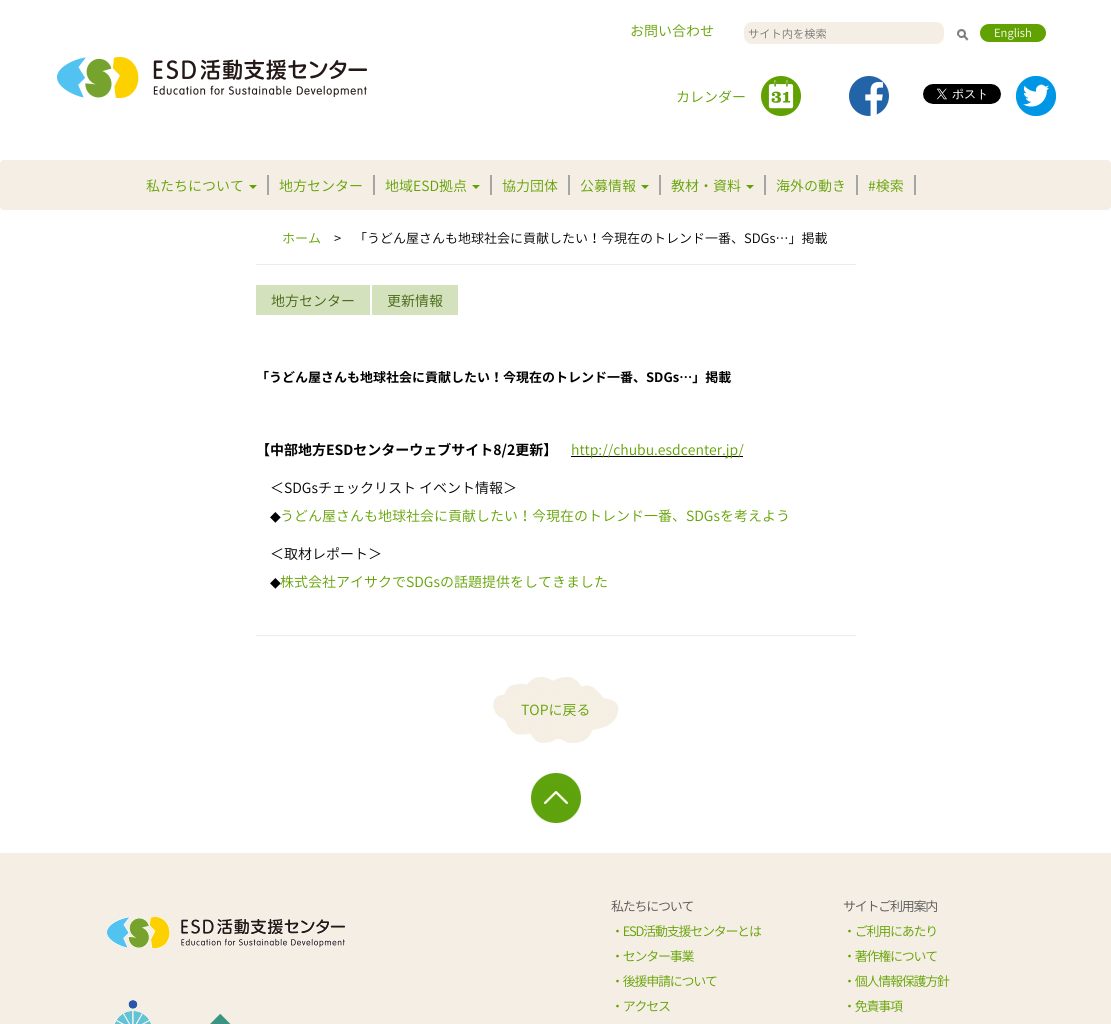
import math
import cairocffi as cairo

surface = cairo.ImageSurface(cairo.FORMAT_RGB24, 1111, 1024)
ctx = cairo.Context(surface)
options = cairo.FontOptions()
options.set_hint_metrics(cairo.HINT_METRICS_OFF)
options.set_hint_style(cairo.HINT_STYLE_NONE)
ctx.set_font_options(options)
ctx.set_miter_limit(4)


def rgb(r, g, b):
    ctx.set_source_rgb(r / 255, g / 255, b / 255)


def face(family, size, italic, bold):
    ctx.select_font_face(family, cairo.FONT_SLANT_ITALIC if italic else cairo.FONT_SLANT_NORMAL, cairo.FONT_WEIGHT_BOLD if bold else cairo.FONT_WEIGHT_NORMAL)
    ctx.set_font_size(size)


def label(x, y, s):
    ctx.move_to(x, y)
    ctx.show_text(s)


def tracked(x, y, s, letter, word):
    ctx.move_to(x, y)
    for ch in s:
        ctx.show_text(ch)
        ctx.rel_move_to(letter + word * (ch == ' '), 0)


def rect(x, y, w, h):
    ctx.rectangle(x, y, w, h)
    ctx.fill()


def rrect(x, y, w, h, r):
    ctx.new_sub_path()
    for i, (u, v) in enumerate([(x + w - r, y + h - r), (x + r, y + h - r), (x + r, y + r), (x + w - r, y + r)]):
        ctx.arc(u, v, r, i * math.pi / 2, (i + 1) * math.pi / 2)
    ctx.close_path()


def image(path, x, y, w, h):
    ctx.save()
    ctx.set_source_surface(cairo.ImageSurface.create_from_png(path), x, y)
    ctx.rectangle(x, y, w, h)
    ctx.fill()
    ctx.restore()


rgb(255, 255, 255)
ctx.paint()
face('Noto Sans JP Light', 14, 0, 0)
rgb(97, 161, 0)
label(630, 36, 'お問い合わせ')
rgb(245, 238, 228)
rrect(744, 22, 200, 22, 8)
ctx.fill()
face('Noto Sans JP Light', 11.25, 0, 0)
rgb(117, 117, 117)
label(748, 38, 'サイト内を検索')
image('image0.png', 957, 29, 12, 12)
rgb(97, 161, 0)
rrect(980, 24, 66, 18, 9)
ctx.fill()
rgb(255, 255, 255)
label(994, 37, 'English')
image('image1.png', 57, 57, 310, 41)
face('Noto Sans JP Light', 14, 0, 0)
rgb(97, 161, 0)
label(676, 102, 'カレンダー')
image('image2.png', 761, 76, 40, 40)
image('image3.png', 849, 76, 40, 40)
image('image4.png', 923, 84, 78, 20)
image('image5.png', 1016, 76, 40, 40)
rgb(245, 238, 228)
rrect(0, 160, 1111, 50, 4)
ctx.fill()
rgb(165, 165, 165)
rect(267, 175, 2, 20)
rgb(97, 161, 0)
label(146, 191, '私たちについて')
ctx.new_path()
ctx.move_to(249, 185)
ctx.line_to(257, 185)
ctx.line_to(253, 189)
ctx.close_path()
ctx.fill()
rgb(165, 165, 165)
rect(373, 175, 2, 20)
rgb(97, 161, 0)
label(279, 191, '地方センター')
rgb(165, 165, 165)
rect(490, 175, 2, 20)
rgb(97, 161, 0)
label(385, 191, '地域ESD拠点')
ctx.new_path()
ctx.move_to(472, 185)
ctx.line_to(480, 185)
ctx.line_to(476, 189)
ctx.close_path()
ctx.fill()
rgb(165, 165, 165)
rect(568, 175, 2, 20)
rgb(97, 161, 0)
label(502, 191, '協力団体')
rgb(165, 165, 165)
rect(659, 175, 2, 20)
rgb(97, 161, 0)
label(580, 191, '公募情報')
ctx.new_path()
ctx.move_to(641, 185)
ctx.line_to(649, 185)
ctx.line_to(645, 189)
ctx.close_path()
ctx.fill()
rgb(165, 165, 165)
rect(764, 175, 2, 20)
rgb(97, 161, 0)
label(671, 191, '教材・資料')
ctx.new_path()
ctx.move_to(746, 185)
ctx.line_to(754, 185)
ctx.line_to(750, 189)
ctx.close_path()
ctx.fill()
rgb(165, 165, 165)
rect(856, 175, 2, 20)
rgb(97, 161, 0)
label(776, 191, '海外の動き')
rgb(165, 165, 165)
rect(914, 175, 2, 20)
rgb(97, 161, 0)
label(868, 191, '#検索')
rgb(237, 237, 237)
rect(256, 264, 600, 1)
face('Noto Sans JP Light', 13, 0, 0)
rgb(97, 161, 0)
label(282, 243, 'ホーム')
rgb(0, 0, 0)
label(334, 243, '>')
label(354, 243, '「うどん屋さんも地球社会に貢献したい！今現在のトレンド一番、SDGs…」掲載')
rgb(211, 225, 189)
rect(256, 285, 114, 30)
face('Noto Sans JP Light', 14, 0, 0)
rgb(67, 101, 16)
label(271, 306, '地方センター')
rgb(211, 225, 189)
rect(372, 285, 86, 30)
rgb(67, 101, 16)
label(387, 306, '更新情報')
face('Noto Sans JP', 13, 0, 1)
rgb(0, 0, 0)
label(256, 382, '「うどん屋さんも地球社会に貢献したい！今現在のトレンド一番、SDGs…」掲載')
rgb(237, 237, 237)
rect(256, 635, 600, 1)
face('Noto Sans JP', 14, 0, 1)
rgb(0, 0, 0)
label(256, 455, '【中部地方ESDセンターウェブサイト8/2更新】')
rect(571, 456, 172, 1)
face('Noto Sans JP Light', 14, 0, 0)
rgb(97, 161, 0)
label(571, 455, 'http://chubu.esdcenter.jp/')
rgb(0, 0, 0)
label(270, 493, '＜SDGsチェックリスト イベント情報＞')
face('DejaVu Sans', 14, 0, 0)
label(270, 521, '◆')
face('Noto Sans JP Light', 14, 0, 0)
rgb(97, 161, 0)
label(280, 521, 'うどん屋さんも地球社会に貢献したい！今現在のトレンド一番、SDGsを考えよう')
rgb(0, 0, 0)
label(270, 559, '＜取材レポート＞')
face('DejaVu Sans', 14, 0, 0)
label(270, 587, '◆')
face('Noto Sans JP Light', 14, 0, 0)
rgb(97, 161, 0)
label(280, 587, '株式会社アイサクでSDGsの話題提供をしてきました')
image('image6.png', 493, 677, 126, 66)
label(521, 715, 'TOPに戻る')
image('image7.png', 531, 773, 50, 50)
rgb(245, 238, 228)
rect(0, 853, 1111, 171)
image('image8.png', 107, 917, 238, 31)
image('image9.png', 114, 1000, 37, 24)
image('image10.png', 210, 1014, 21, 10)
face('Noto Sans JP Light', 13, 0, 0)
rgb(85, 85, 85)
tracked(611, 911, '私たちについて', -1.25, 0)
rgb(97, 161, 0)
tracked(611, 936, '・ESD活動支援センターとは', -1.25, 0)
tracked(611, 961, '・センター事業', -1.25, 0)
tracked(611, 986, '・後援申請について', -1.25, 0)
tracked(611, 1011, '・アクセス', -1.25, 0)
rgb(85, 85, 85)
tracked(843, 911, 'サイトご利用案内', -1.25, 0)
rgb(97, 161, 0)
tracked(843, 936, '・ご利用にあたり', -1.25, 0)
tracked(843, 961, '・著作権について', -1.25, 0)
tracked(843, 986, '・個人情報保護方針', -1.25, 0)
tracked(843, 1011, '・免責事項', -1.25, 0)
surface.write_to_png('render.png')
